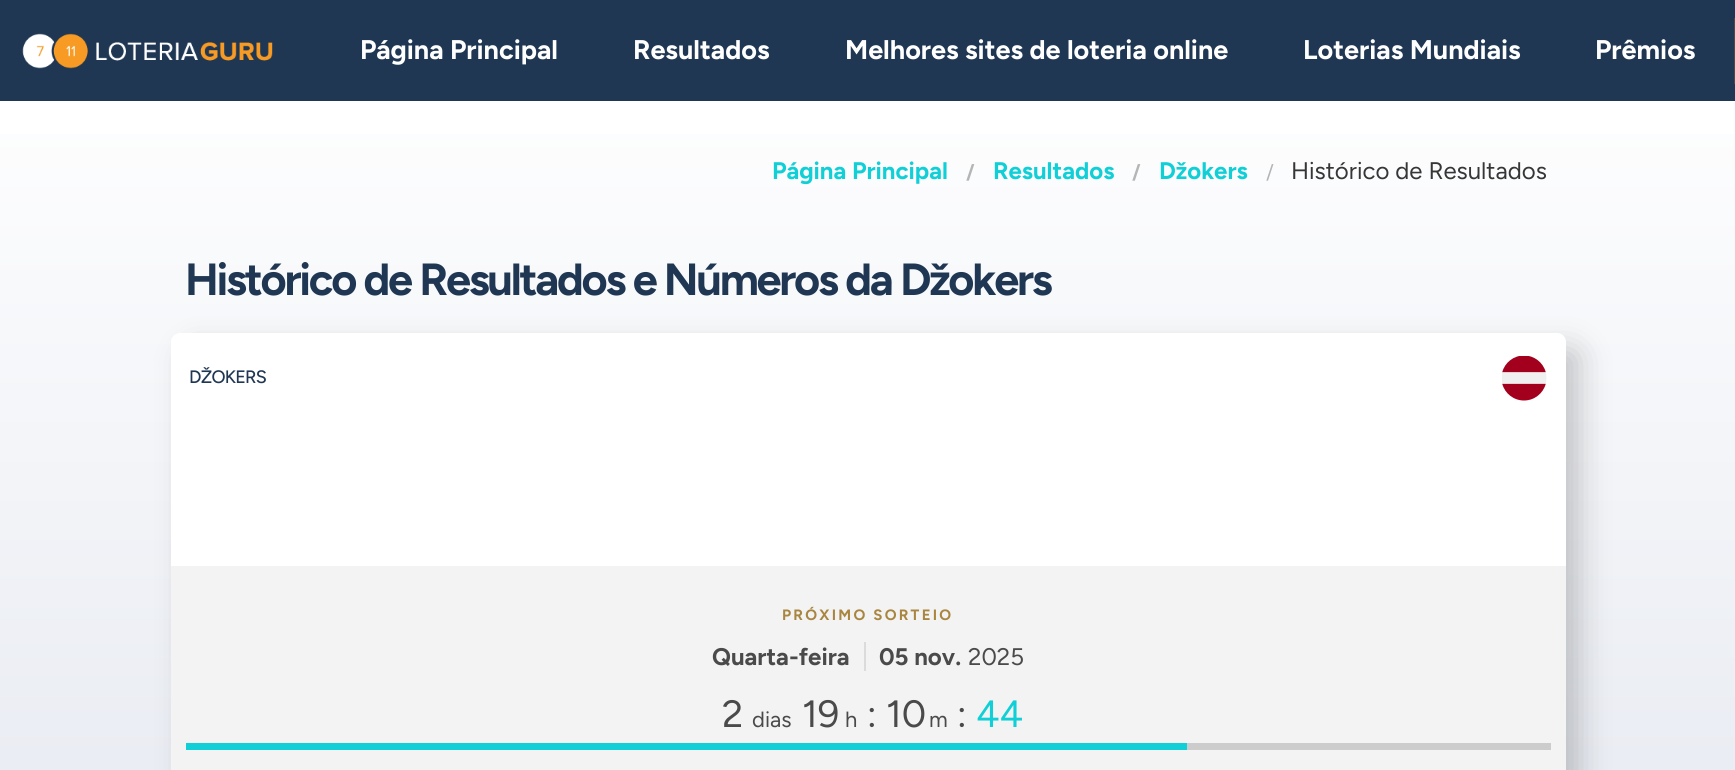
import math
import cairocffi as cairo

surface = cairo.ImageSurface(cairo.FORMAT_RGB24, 1735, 770)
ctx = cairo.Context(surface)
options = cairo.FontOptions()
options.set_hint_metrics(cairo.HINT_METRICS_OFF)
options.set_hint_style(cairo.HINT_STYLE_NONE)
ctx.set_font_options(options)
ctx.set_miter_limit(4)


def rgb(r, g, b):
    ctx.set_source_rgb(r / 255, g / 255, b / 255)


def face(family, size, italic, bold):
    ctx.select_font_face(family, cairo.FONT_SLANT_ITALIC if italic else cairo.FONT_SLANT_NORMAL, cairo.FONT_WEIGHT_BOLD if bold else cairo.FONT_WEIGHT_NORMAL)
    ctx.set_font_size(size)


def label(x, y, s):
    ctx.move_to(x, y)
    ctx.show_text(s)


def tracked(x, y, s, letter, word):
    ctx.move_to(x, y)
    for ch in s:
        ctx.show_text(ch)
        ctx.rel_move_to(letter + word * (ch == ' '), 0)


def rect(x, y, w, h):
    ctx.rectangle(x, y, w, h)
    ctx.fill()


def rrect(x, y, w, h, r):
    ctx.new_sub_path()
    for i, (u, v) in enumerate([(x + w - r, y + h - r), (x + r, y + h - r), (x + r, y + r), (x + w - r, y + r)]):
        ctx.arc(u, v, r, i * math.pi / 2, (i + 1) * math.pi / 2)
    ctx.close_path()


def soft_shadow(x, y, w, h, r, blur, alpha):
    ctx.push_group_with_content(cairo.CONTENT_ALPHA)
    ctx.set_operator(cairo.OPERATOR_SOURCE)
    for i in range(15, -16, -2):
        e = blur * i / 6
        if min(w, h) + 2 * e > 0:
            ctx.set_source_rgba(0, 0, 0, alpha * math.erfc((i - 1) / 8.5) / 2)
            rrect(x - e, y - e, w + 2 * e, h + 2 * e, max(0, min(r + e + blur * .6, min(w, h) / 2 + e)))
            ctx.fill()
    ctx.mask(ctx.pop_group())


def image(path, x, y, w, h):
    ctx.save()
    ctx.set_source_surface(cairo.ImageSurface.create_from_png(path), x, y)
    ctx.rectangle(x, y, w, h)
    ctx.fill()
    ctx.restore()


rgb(255, 255, 255)
ctx.paint()
rgb(32, 55, 84)
rect(0, 0, 1735, 101)
image('image0.png', 22, 33, 251, 36)
face('Figtree', 27, 0, 1)
rgb(255, 255, 255)
label(360, 59, 'Página Principal')
label(633, 59, 'Resultados')
label(845, 59, 'Melhores sites de loteria online')
label(1303, 59, 'Loterias Mundiais')
label(1595, 59, 'Prêmios')
ctx.rectangle(1735, 19, 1, 64)
rgb(74, 74, 74)
ctx.stroke()
gradient = cairo.LinearGradient(868, 49, 868, 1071)
gradient.add_color_stop_rgba(0, 1, 1, 1, 1)
gradient.add_color_stop_rgba(1, 0.882, 0.898, 0.933, 1)
ctx.set_source(gradient)
rect(0, 134, 1735, 636)
face('Figtree', 24, 0, 1)
rgb(17, 207, 214)
label(772, 179, 'Página Principal')
face('Figtree', 20, 0, 1)
rgb(181, 181, 181)
label(966, 179, '/')
face('Figtree', 24, 0, 1)
rgb(17, 207, 214)
label(993, 179, 'Resultados')
face('Figtree', 20, 0, 1)
rgb(181, 181, 181)
label(1132, 179, '/')
face('Figtree', 24, 0, 1)
rgb(17, 207, 214)
label(1159, 179, 'Džokers')
face('Figtree', 20, 0, 0)
rgb(181, 181, 181)
label(1266, 179, '/')
face('Figtree', 24, 0, 0)
rgb(54, 54, 54)
label(1291, 179, 'Histórico de Resultados')
face('Figtree', 45, 0, 1)
rgb(32, 55, 84)
tracked(185, 295, 'Histórico de Resultados e Números da Džokers', -2.25, 0)
rgb(10, 10, 10)
soft_shadow(186, 348, 1395, 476, 9, 15, 0.2)
rgb(255, 255, 255)
rrect(171, 333, 1395, 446, 9)
ctx.fill()
face('Figtree Medium', 18, 0, 0)
rgb(32, 55, 84)
tracked(189, 383, 'DŽOKERS', -0.75, 0)
image('image1.png', 1502, 356, 45, 45)
rgb(243, 243, 243)
rect(171, 566, 1395, 204)
face('Figtree', 15, 0, 1)
rgb(169, 134, 64)
tracked(782, 620, 'PRÓXIMO SORTEIO', 2.25, 0)
face('Figtree', 24, 0, 1)
rgb(74, 74, 74)
label(712, 665, 'Quarta-feira')
rgb(219, 219, 219)
rect(864, 642, 2, 29)
rgb(74, 74, 74)
label(879, 665, '05 nov.')
face('Figtree', 24, 0, 0)
label(968, 665, '2025')
face('Figtree', 38, 0, 0)
label(722, 727, '2')
face('Figtree', 22, 0, 0)
label(752, 727, 'dias')
face('Figtree', 38, 0, 0)
label(802, 727, '19')
face('Figtree', 22, 0, 0)
label(845, 727, 'h')
face('Figtree', 38, 0, 0)
label(867, 727, ': 10')
face('Figtree', 22, 0, 0)
label(929, 727, 'm')
face('Figtree', 38, 0, 0)
label(957, 727, ':')
rgb(17, 207, 214)
label(976, 727, '44')
rgb(204, 204, 204)
rect(1187, 743, 364, 7)
rgb(17, 207, 214)
rect(186, 743, 1001, 7)
surface.write_to_png('render.png')
